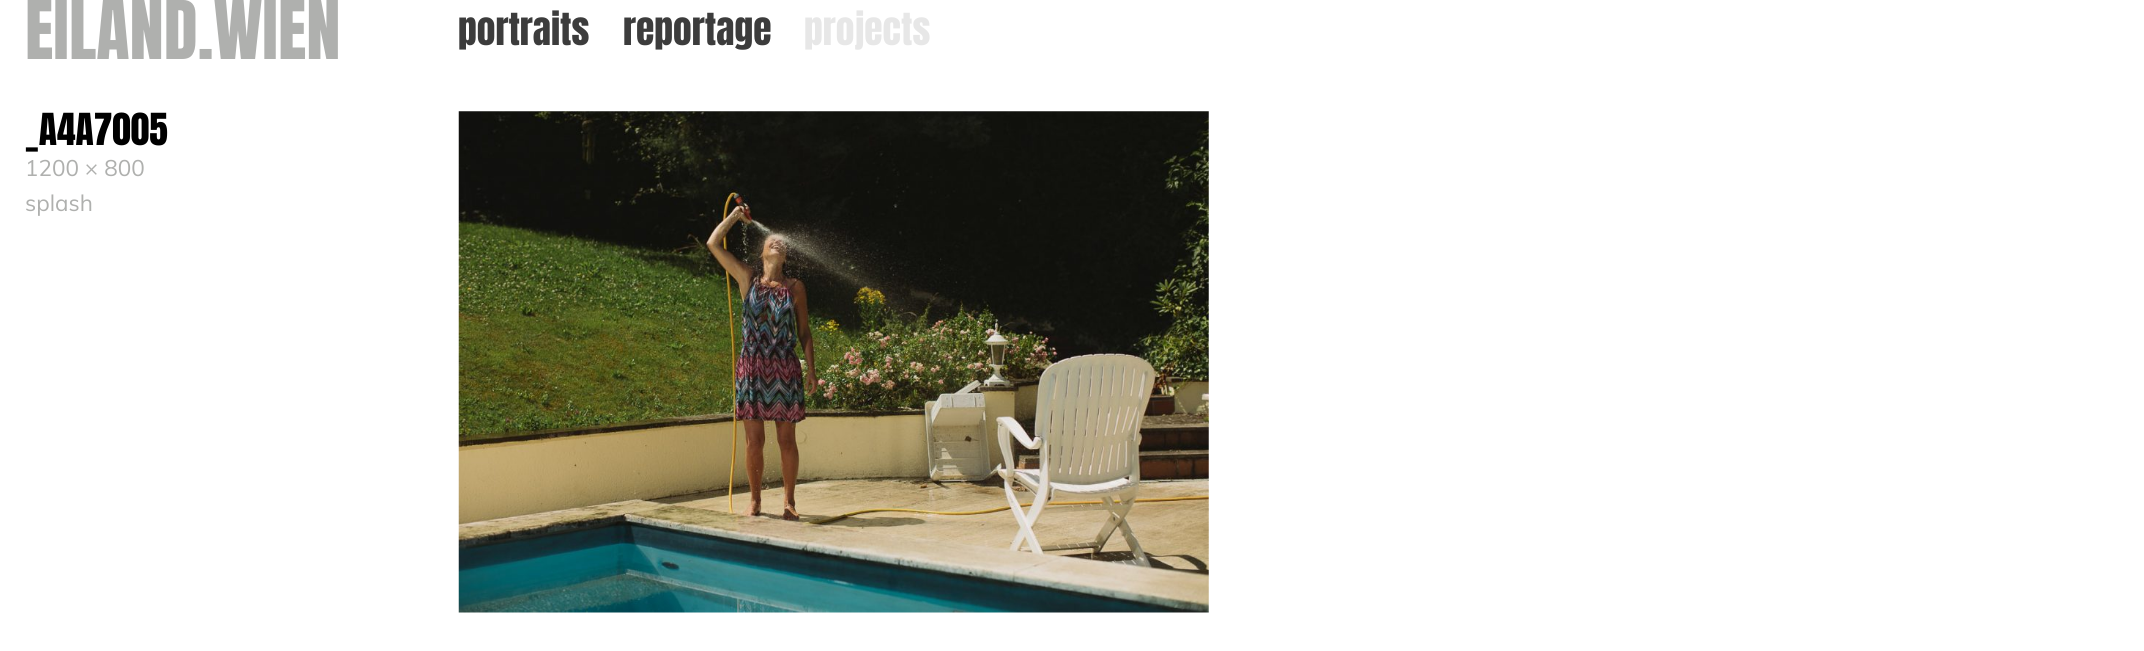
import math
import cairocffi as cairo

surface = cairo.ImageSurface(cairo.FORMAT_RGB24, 2144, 651)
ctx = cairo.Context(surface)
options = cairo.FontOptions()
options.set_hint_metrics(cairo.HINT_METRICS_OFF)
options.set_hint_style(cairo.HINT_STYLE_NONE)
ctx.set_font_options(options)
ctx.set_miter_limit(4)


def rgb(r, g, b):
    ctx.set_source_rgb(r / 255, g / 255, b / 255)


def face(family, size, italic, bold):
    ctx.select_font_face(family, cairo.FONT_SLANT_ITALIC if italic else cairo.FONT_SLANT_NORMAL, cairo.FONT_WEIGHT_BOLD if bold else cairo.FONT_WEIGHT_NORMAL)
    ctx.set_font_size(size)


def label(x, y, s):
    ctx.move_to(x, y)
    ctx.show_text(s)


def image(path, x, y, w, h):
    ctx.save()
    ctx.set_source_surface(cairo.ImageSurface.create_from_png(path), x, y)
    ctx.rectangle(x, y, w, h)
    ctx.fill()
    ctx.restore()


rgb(255, 255, 255)
ctx.paint()
face('Anton', 68.75, 0, 0)
rgb(175, 176, 174)
label(25, 59, 'EILAND.WIEN')
face('Anton', 37.5, 0, 0)
rgb(60, 60, 60)
label(458, 45, 'portraits')
label(623, 45, 'reportage')
rgb(231, 231, 231)
label(804, 45, 'projects')
rgb(0, 0, 0)
label(25, 145, '_A4A7005')
face('Muli', 22.5, 0, 0)
rgb(175, 176, 174)
label(25, 176, '1200 × 800')
label(25, 211, 'splash')
image('image0.png', 458, 111, 751, 502)
surface.write_to_png('render.png')
